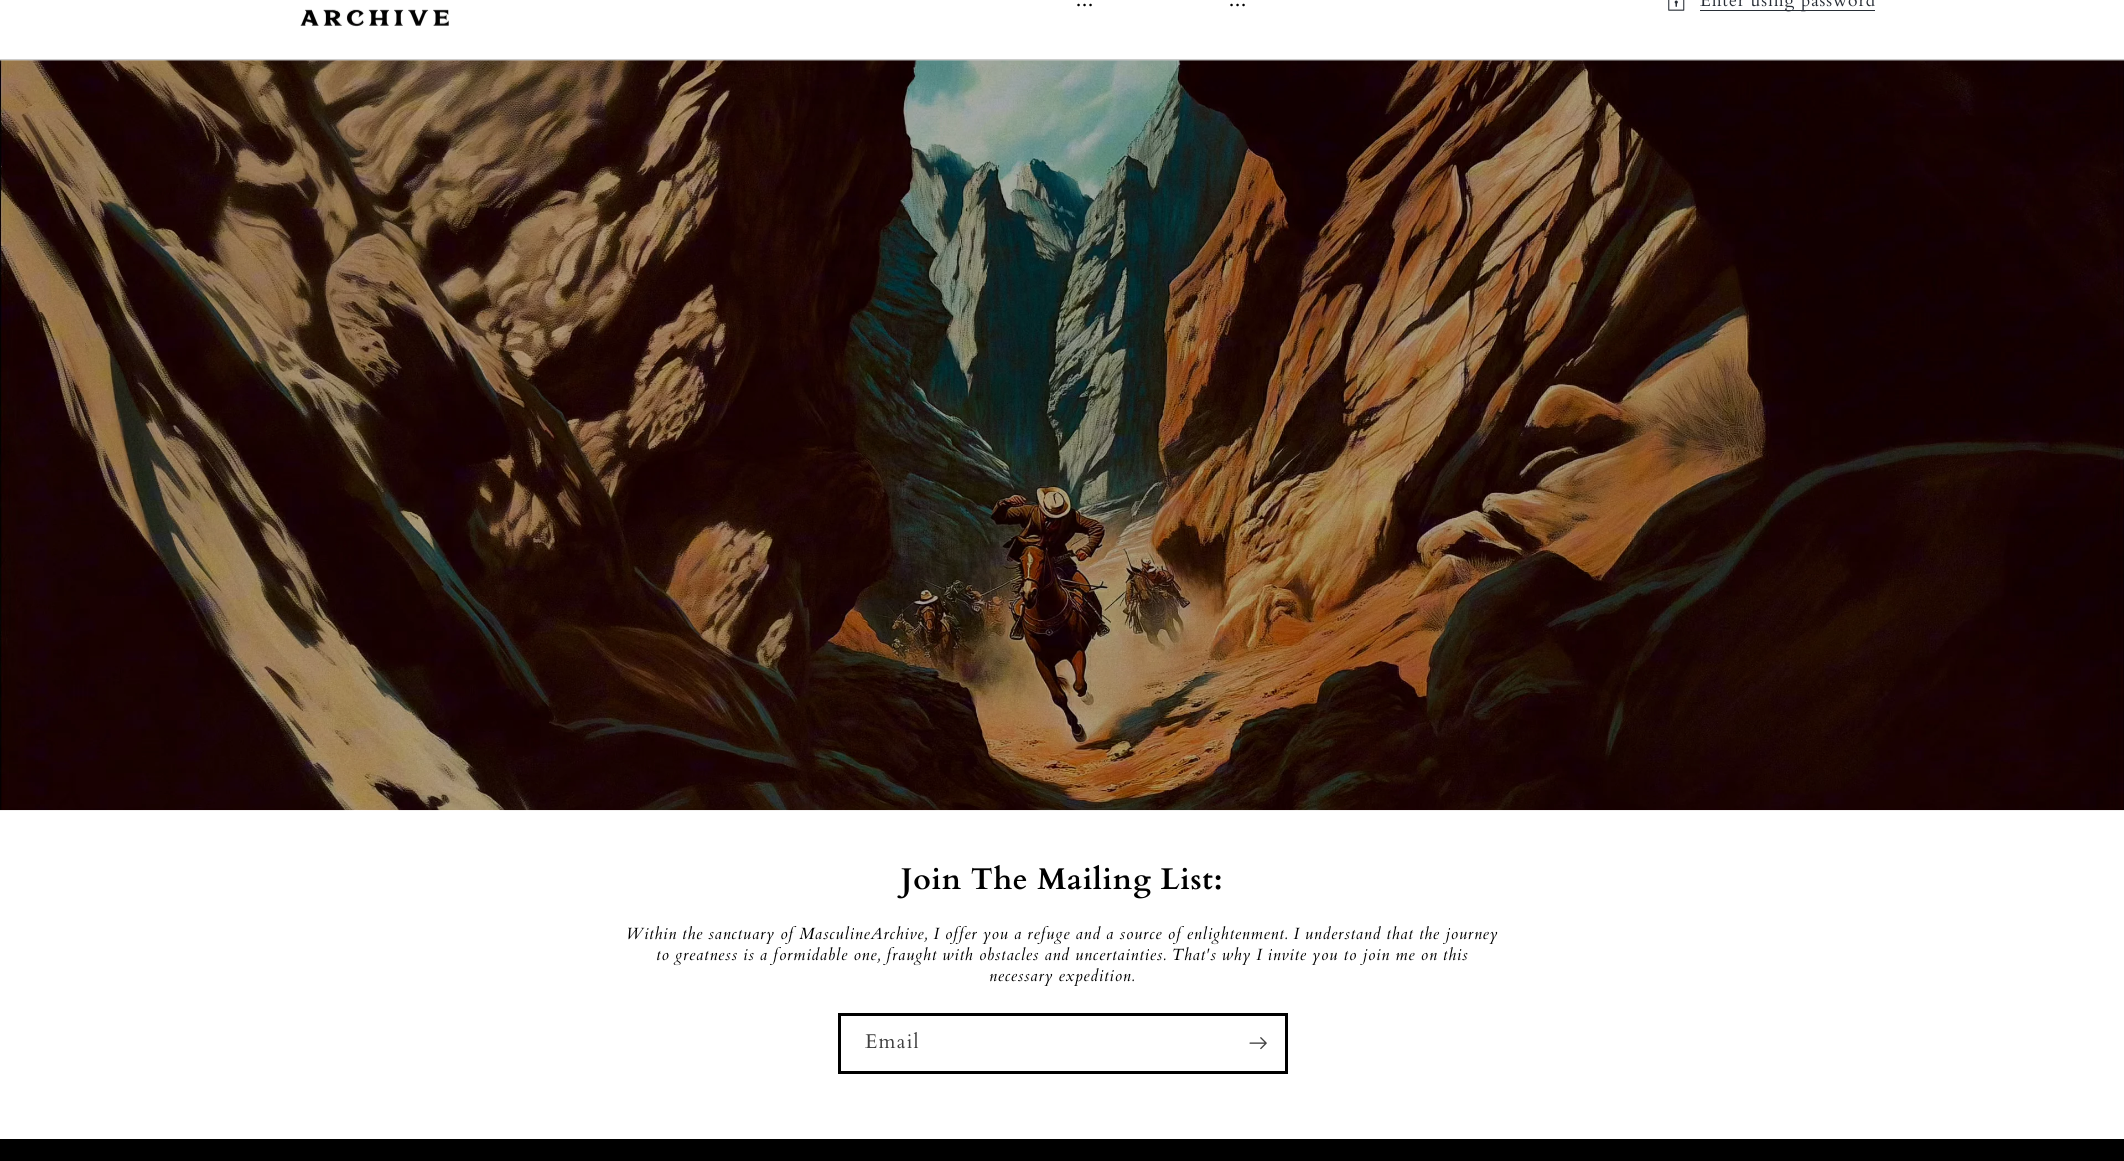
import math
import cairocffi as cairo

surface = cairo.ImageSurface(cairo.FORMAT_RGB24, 2124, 1161)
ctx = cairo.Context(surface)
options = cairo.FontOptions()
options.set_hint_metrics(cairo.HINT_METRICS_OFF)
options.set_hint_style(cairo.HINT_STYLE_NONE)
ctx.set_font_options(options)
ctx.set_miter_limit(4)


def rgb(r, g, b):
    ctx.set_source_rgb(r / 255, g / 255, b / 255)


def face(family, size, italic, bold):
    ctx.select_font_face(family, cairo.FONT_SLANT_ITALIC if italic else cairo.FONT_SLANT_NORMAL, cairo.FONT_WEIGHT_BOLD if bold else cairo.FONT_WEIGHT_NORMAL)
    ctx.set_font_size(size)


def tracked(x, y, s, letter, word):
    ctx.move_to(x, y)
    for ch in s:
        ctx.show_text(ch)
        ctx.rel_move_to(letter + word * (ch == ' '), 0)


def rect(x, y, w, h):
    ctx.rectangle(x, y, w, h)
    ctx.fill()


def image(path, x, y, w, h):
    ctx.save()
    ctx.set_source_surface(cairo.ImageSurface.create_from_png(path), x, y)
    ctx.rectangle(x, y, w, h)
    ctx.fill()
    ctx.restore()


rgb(255, 255, 255)
ctx.paint()
rgb(204, 204, 204)
rect(0, 59, 2124, 2)
face('Cardo', 20, 0, 0)
rgb(0, 0, 0)
tracked(1076, 6, '...', 0.9, 0)
tracked(1229, 6, '...', 0.9, 0)
image('image0.png', 1668, 0, 17, 11)
rgb(40, 46, 54)
rect(1700, 10, 175, 1)
face('Cardo', 17.5, 0, 0)
rgb(39, 45, 53)
tracked(1700, 6, 'Enter using password', 0.9, 0)
image('image1.png', 300, 9, 149, 18)
image('image2.png', 0, 60, 2124, 751)
face('Cardo', 30, 0, 1)
rgb(0, 0, 0)
tracked(901, 889, 'Join The Mailing List:', 0.75, 0)
face('Cardo', 16.25, 1, 0)
tracked(626, 939, 'Within the sanctuary of MasculineArchive, I offer you a refuge and a source of enlightenment. I understand that the journey', 0.75, 0)
tracked(656, 960, 'to greatness is a formidable one, fraught with obstacles and uncertainties. That\'s why I invite you to join me on this', 0.75, 0)
tracked(989, 981, 'necessary expedition.', 0.75, 0)
ctx.rectangle(839.5, 1014.5, 447, 58)
ctx.set_line_width(3)
ctx.stroke()
face('Cardo', 20, 0, 0)
rgb(64, 64, 64)
tracked(865, 1048, 'Email', 1.25, 0)
image('image3.png', 1249, 1037, 18, 13)
rgb(0, 0, 0)
rect(0, 1139, 2124, 22)
surface.write_to_png('render.png')
